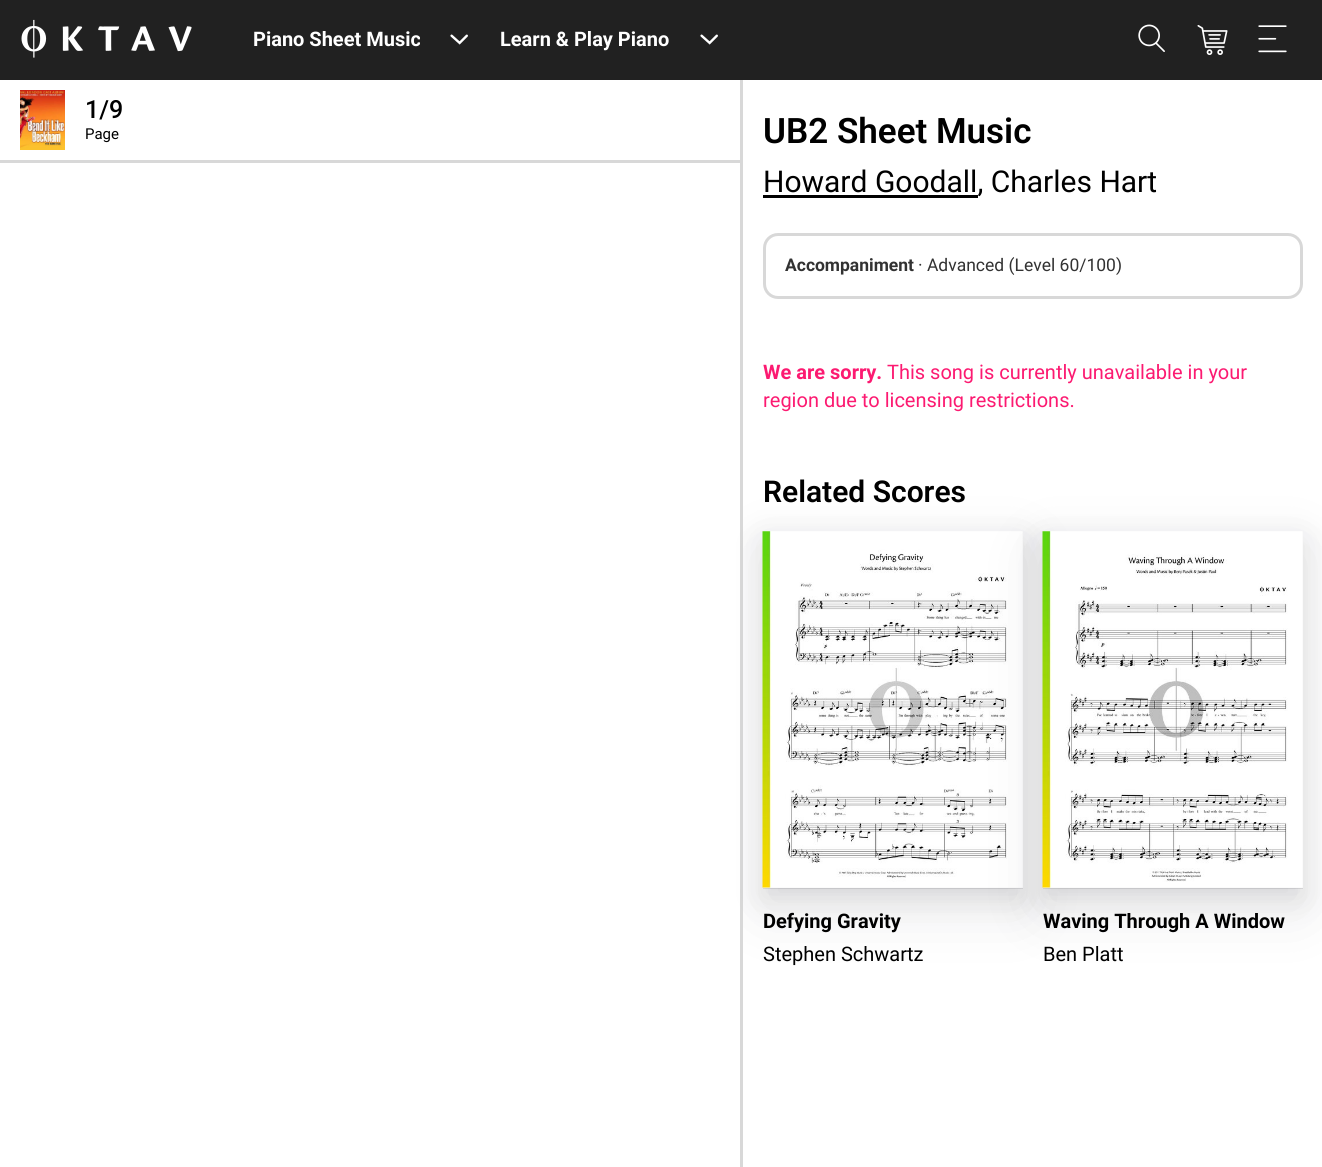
import math
import cairocffi as cairo

surface = cairo.ImageSurface(cairo.FORMAT_RGB24, 1322, 1167)
ctx = cairo.Context(surface)
options = cairo.FontOptions()
options.set_hint_metrics(cairo.HINT_METRICS_OFF)
options.set_hint_style(cairo.HINT_STYLE_NONE)
ctx.set_font_options(options)
ctx.set_miter_limit(4)


def rgb(r, g, b):
    ctx.set_source_rgb(r / 255, g / 255, b / 255)


def face(family, size, italic, bold):
    ctx.select_font_face(family, cairo.FONT_SLANT_ITALIC if italic else cairo.FONT_SLANT_NORMAL, cairo.FONT_WEIGHT_BOLD if bold else cairo.FONT_WEIGHT_NORMAL)
    ctx.set_font_size(size)


def label(x, y, s):
    ctx.move_to(x, y)
    ctx.show_text(s)


def rect(x, y, w, h):
    ctx.rectangle(x, y, w, h)
    ctx.fill()


def rrect(x, y, w, h, r):
    ctx.new_sub_path()
    for i, (u, v) in enumerate([(x + w - r, y + h - r), (x + r, y + h - r), (x + r, y + r), (x + w - r, y + r)]):
        ctx.arc(u, v, r, i * math.pi / 2, (i + 1) * math.pi / 2)
    ctx.close_path()


def soft_shadow(x, y, w, h, r, blur, alpha):
    ctx.push_group_with_content(cairo.CONTENT_ALPHA)
    ctx.set_operator(cairo.OPERATOR_SOURCE)
    for i in range(15, -16, -2):
        e = blur * i / 6
        if min(w, h) + 2 * e > 0:
            ctx.set_source_rgba(0, 0, 0, alpha * math.erfc((i - 1) / 8.5) / 2)
            rrect(x - e, y - e, w + 2 * e, h + 2 * e, max(0, min(r + e + blur * .6, min(w, h) / 2 + e)))
            ctx.fill()
    ctx.mask(ctx.pop_group())


def image(path, x, y, w, h):
    ctx.save()
    ctx.set_source_surface(cairo.ImageSurface.create_from_png(path), x, y)
    ctx.rectangle(x, y, w, h)
    ctx.fill()
    ctx.restore()


rgb(255, 255, 255)
ctx.paint()
rgb(33, 33, 33)
rect(0, 0, 1322, 80)
image('image0.png', 21, 19, 171, 39)
face('Roboto', 20, 0, 1)
rgb(255, 255, 255)
label(253, 46, 'Piano Sheet Music')
image('image1.png', 450, 34, 18, 11)
label(500, 46, 'Learn & Play Piano')
image('image1.png', 700, 34, 18, 11)
image('image2.png', 1138, 24, 27, 28)
image('image3.png', 1197, 25, 31, 30)
image('image4.png', 1258, 25, 29, 28)
rgb(216, 216, 216)
rect(740, 80, 3, 1087)
rect(0, 160, 740, 3)
image('image5.png', 20, 90, 45, 60)
face('Roboto Medium', 25, 0, 0)
rgb(0, 0, 0)
label(85, 118, '1/9')
face('Roboto', 15, 0, 0)
label(85, 139, 'Page')
face('Roboto SemiBold', 35, 0, 0)
label(763, 143, 'UB2 Sheet Music')
rect(763, 195, 215, 3)
face('Roboto', 30, 0, 0)
label(763, 192, 'Howard Goodall, Charles Hart')
rrect(764.5, 234.5, 537, 63, 13.5)
rgb(216, 216, 216)
ctx.set_line_width(3)
ctx.stroke()
face('Roboto', 17.5, 0, 1)
rgb(50, 50, 50)
label(785, 271, 'Accompaniment')
face('Roboto', 17.5, 0, 0)
label(918, 271, '· Advanced (Level 60/100)')
face('Roboto', 20, 0, 1)
rgb(252, 26, 113)
label(763, 379, 'We are sorry.')
face('Roboto', 20, 0, 0)
label(887, 379, 'This song is currently unavailable in your')
label(763, 407, 'region due to licensing restrictions.')
face('Roboto SemiBold', 30, 0, 0)
rgb(0, 0, 0)
label(763, 502, 'Related Scores')
ctx.save()
ctx.rectangle(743, 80, 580, 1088)
ctx.clip()
rgb(17, 17, 26)
soft_shadow(763, 551, 260, 357, 0, 30, 0.1)
ctx.restore()
rgb(17, 17, 26)
soft_shadow(763, 541, 260, 357, 0, 15, 0.1)
ctx.set_source_rgba(0.067, 0.067, 0.102, 0.1)
ctx.new_path()
ctx.move_to(763, 888)
ctx.line_to(763, 889)
ctx.line_to(1023, 889)
ctx.line_to(1023, 533)
ctx.line_to(1022, 533)
ctx.line_to(1022, 888)
ctx.close_path()
ctx.fill()
rgb(246, 246, 246)
rect(763, 531, 260, 357)
image('image6.png', 762, 531, 261, 357)
rgb(17, 17, 26)
soft_shadow(1043, 551, 260, 357, 0, 30, 0.1)
soft_shadow(1043, 541, 260, 357, 0, 15, 0.1)
ctx.set_source_rgba(0.067, 0.067, 0.102, 0.1)
ctx.new_path()
ctx.move_to(1043, 888)
ctx.line_to(1043, 889)
ctx.line_to(1303, 889)
ctx.line_to(1303, 533)
ctx.line_to(1302, 533)
ctx.line_to(1302, 888)
ctx.close_path()
ctx.fill()
rgb(246, 246, 246)
rect(1043, 531, 260, 357)
image('image7.png', 1042, 531, 261, 357)
face('Roboto', 20, 0, 1)
rgb(0, 0, 0)
label(763, 928, 'Defying Gravity')
face('Roboto', 20, 0, 0)
label(763, 961, 'Stephen Schwartz')
face('Roboto', 20, 0, 1)
label(1043, 928, 'Waving Through A Window')
face('Roboto', 20, 0, 0)
label(1043, 961, 'Ben Platt')
surface.write_to_png('render.png')
